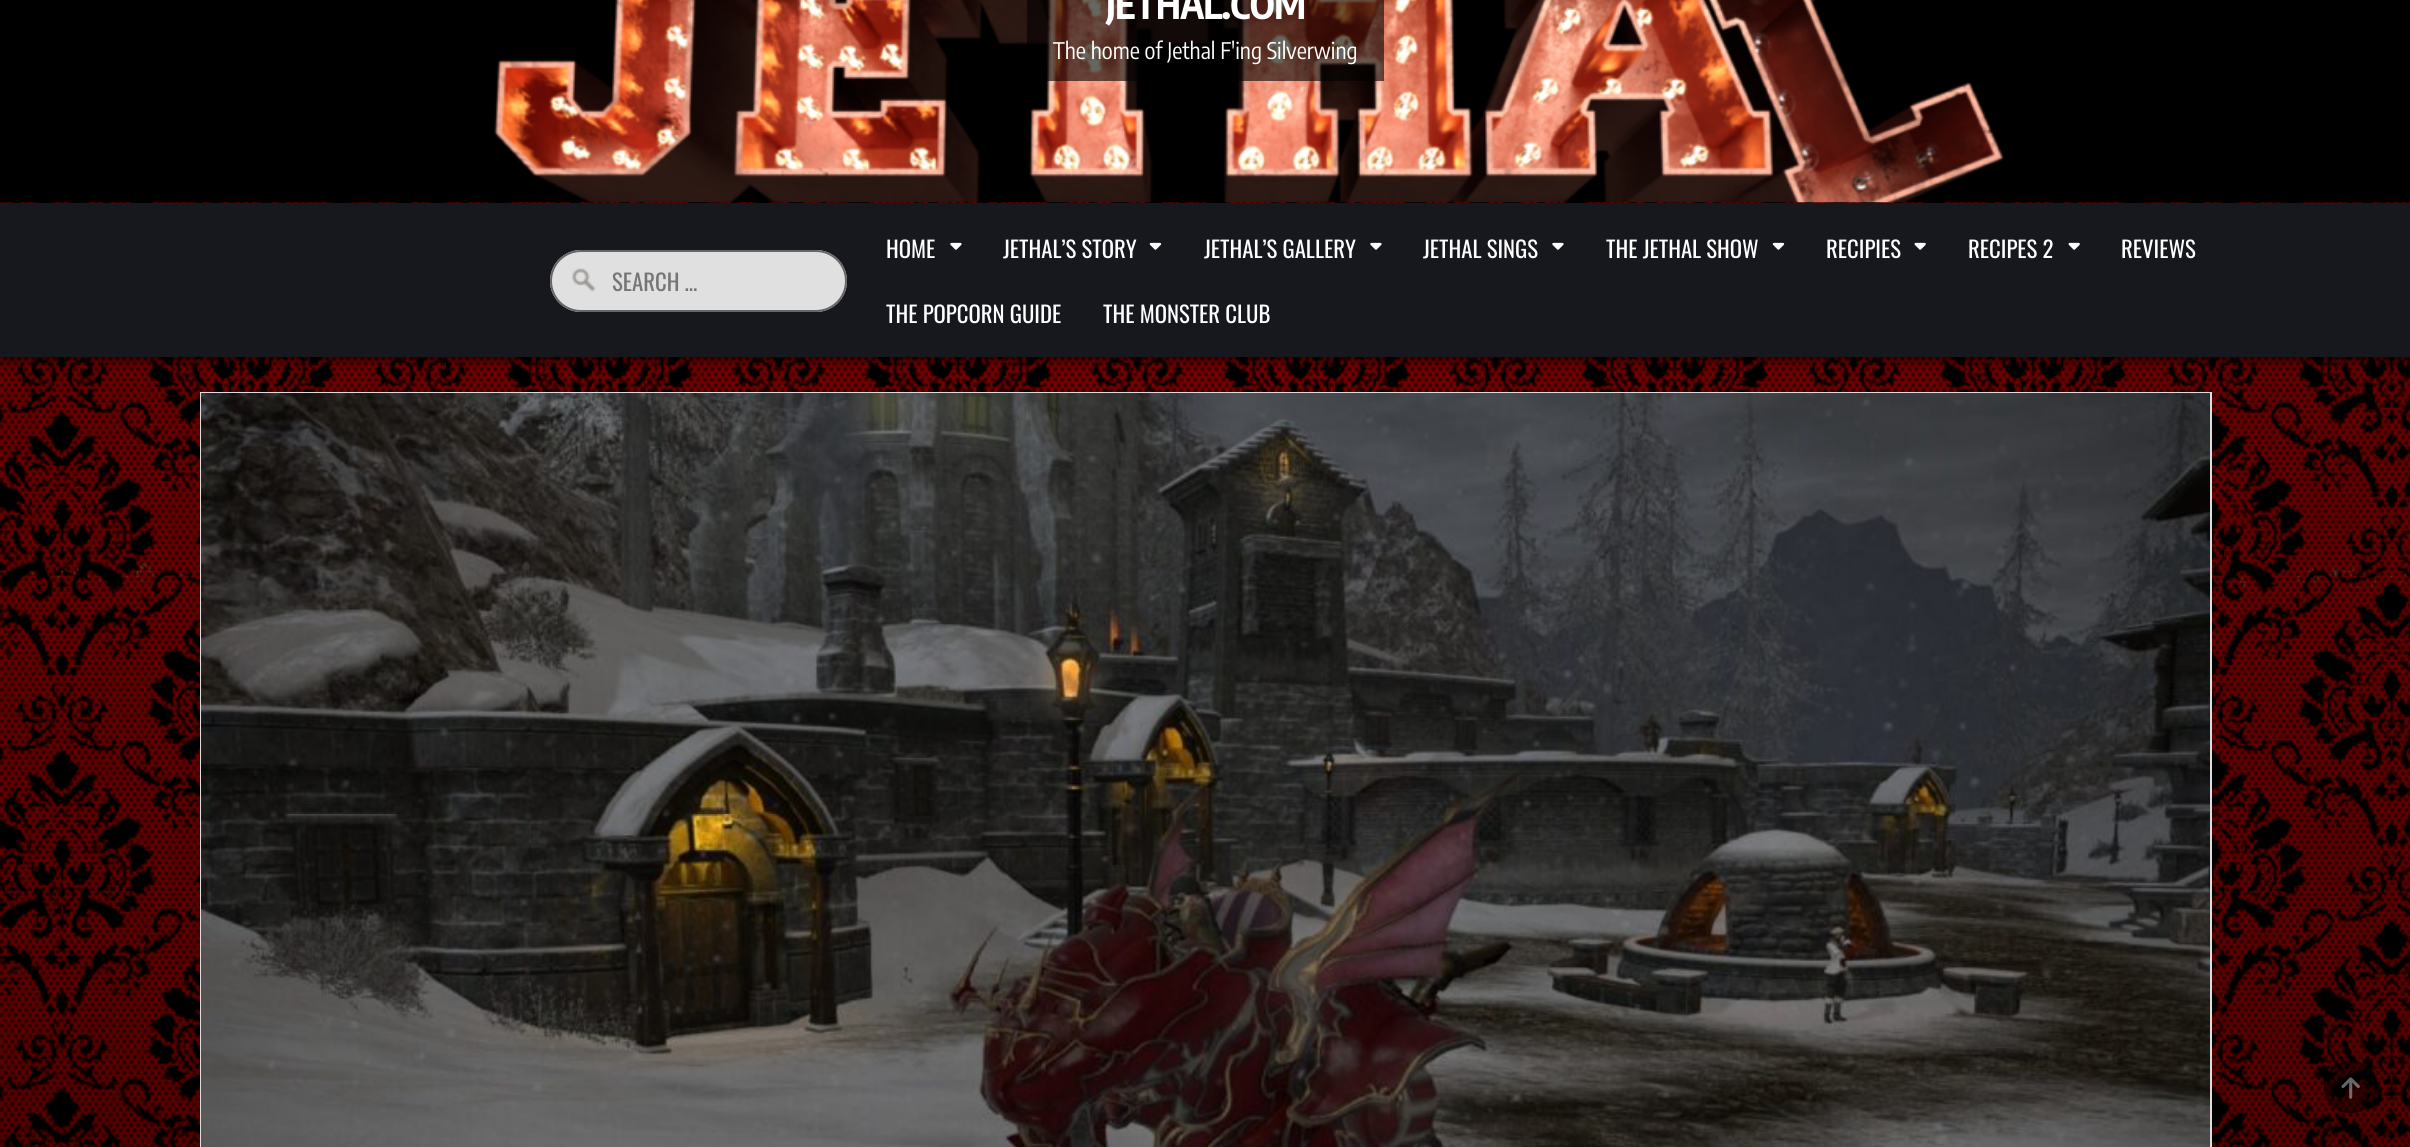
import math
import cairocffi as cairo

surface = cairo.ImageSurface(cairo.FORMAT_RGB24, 2410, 1147)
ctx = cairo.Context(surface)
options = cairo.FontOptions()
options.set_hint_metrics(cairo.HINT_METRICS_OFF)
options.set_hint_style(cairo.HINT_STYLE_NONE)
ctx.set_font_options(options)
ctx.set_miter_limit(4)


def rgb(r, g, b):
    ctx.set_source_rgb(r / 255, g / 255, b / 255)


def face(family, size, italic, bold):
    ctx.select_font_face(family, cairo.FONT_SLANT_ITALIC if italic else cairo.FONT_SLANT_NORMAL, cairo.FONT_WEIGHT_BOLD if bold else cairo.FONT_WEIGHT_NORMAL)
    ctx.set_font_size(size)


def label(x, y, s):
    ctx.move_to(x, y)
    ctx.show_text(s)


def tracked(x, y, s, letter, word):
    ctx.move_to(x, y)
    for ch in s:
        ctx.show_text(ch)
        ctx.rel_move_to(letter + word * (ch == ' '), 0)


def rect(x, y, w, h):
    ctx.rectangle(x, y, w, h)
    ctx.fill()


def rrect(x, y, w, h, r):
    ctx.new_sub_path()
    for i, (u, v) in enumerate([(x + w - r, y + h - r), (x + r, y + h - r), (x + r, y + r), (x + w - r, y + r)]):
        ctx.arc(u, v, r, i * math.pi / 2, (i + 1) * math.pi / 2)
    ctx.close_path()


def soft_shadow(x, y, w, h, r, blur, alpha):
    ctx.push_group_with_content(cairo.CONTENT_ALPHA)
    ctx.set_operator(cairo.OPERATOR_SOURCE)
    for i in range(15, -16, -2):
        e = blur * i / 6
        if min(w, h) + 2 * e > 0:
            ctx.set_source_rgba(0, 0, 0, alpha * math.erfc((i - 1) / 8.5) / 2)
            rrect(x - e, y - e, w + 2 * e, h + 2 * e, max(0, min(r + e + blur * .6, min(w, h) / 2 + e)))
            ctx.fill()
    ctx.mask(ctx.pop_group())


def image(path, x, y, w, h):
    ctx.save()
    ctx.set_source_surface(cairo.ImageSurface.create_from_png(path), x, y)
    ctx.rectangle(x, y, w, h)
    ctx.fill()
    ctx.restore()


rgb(255, 255, 255)
ctx.paint()
image('image0.png', 0, 202, 2410, 945)
image('image1.png', 0, 0, 2410, 203)
ctx.set_source_rgba(0, 0, 0, 0.6)
rect(1027, 0, 357, 81)
face('Encode Sans Condensed', 38.5, 0, 1)
rgb(255, 255, 255)
tracked(1106, 19, 'JETHAL.COM', -0.9, 0)
face('Encode Sans Condensed', 22.75, 0, 0)
label(1053, 59, 'The home of Jethal F\'ing Silverwing')
rgb(0, 0, 0)
soft_shadow(0, 207, 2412, 154, 0, 4.5, 0.5)
rgb(22, 24, 30)
rect(0, 203, 2410, 154)
rgb(224, 224, 224)
rrect(550, 250, 297, 62, 31)
ctx.fill()
image('image2.png', 572, 268, 24, 24)
rrect(551, 251, 295, 60, 30)
rgb(102, 102, 102)
ctx.stroke()
face('Oswald', 22.75, 0, 0)
rgb(117, 117, 117)
label(612, 291, 'SEARCH …')
rgb(255, 255, 255)
label(886, 258, 'HOME')
image('image3.png', 950, 242, 12, 8)
label(1003, 258, 'JETHAL’S STORY')
image('image4.png', 1149, 242, 13, 8)
label(1204, 258, 'JETHAL’S GALLERY')
image('image3.png', 1370, 242, 12, 8)
label(1423, 258, 'JETHAL SINGS')
image('image3.png', 1552, 242, 12, 8)
label(1606, 258, 'THE JETHAL SHOW')
image('image4.png', 1772, 242, 13, 8)
label(1826, 258, 'RECIPIES')
image('image5.png', 1914, 242, 12, 8)
label(1968, 258, 'RECIPES 2')
image('image5.png', 2068, 242, 12, 8)
label(2121, 258, 'REVIEWS')
label(886, 323, 'THE POPCORN GUIDE')
label(1103, 323, 'THE MONSTER CLUB')
ctx.rectangle(201, 393, 2010, 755)
rgb(221, 221, 221)
ctx.stroke()
image('image6.png', 201, 393, 2009, 754)
ctx.set_source_rgba(0, 0, 0, 0.4)
rrect(2324, 1061, 53, 52, 26)
ctx.fill()
rrect(2325, 1062, 51, 50, 25)
ctx.stroke()
image('image7.png', 2341, 1077, 19, 22)
surface.write_to_png('render.png')
